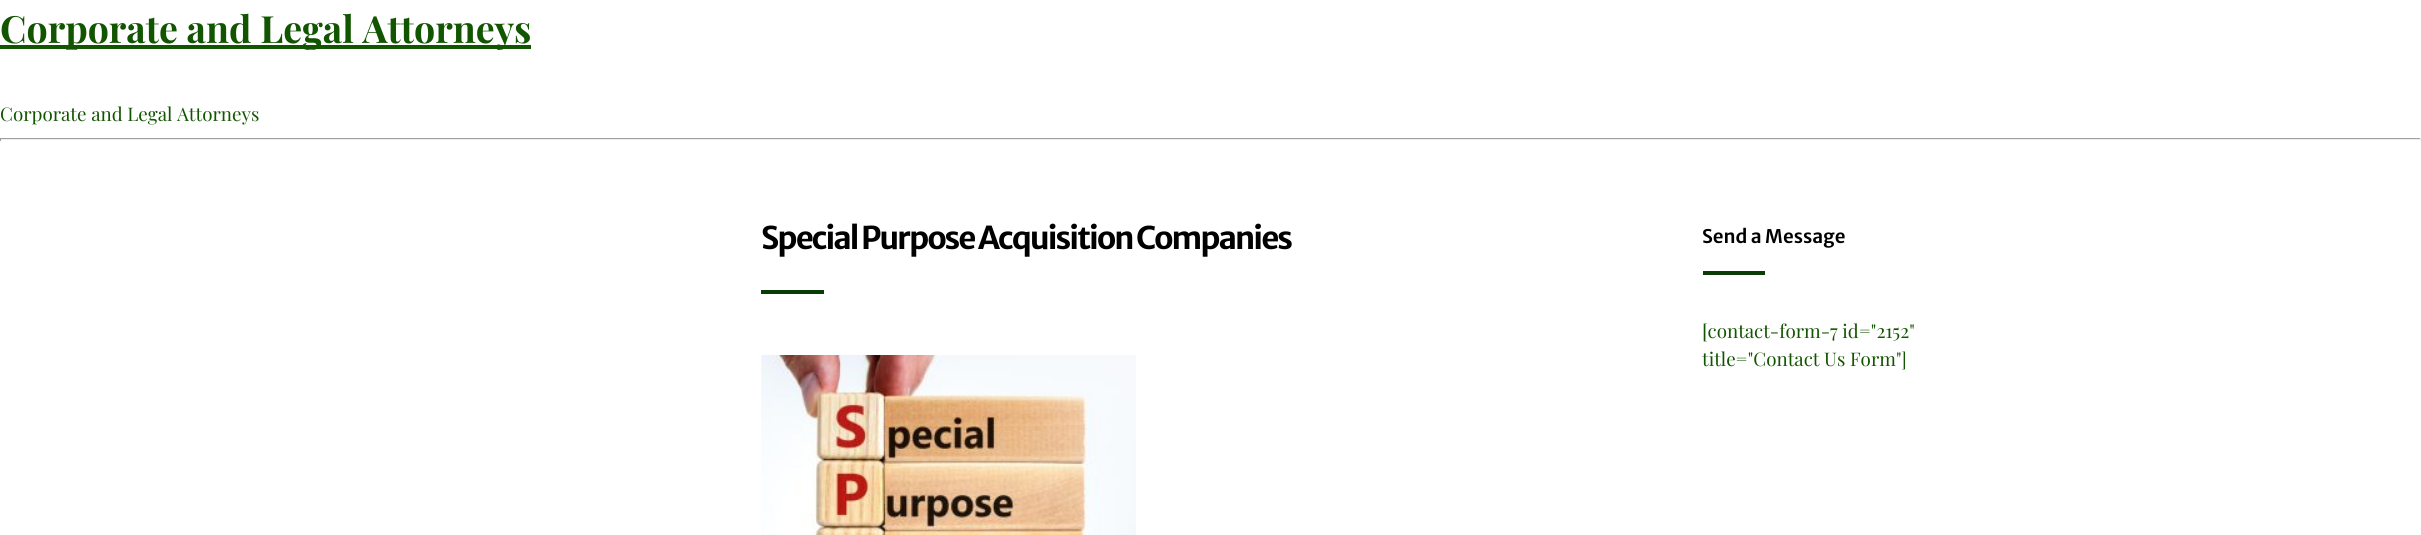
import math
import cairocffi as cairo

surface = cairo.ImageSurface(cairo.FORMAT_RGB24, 2421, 535)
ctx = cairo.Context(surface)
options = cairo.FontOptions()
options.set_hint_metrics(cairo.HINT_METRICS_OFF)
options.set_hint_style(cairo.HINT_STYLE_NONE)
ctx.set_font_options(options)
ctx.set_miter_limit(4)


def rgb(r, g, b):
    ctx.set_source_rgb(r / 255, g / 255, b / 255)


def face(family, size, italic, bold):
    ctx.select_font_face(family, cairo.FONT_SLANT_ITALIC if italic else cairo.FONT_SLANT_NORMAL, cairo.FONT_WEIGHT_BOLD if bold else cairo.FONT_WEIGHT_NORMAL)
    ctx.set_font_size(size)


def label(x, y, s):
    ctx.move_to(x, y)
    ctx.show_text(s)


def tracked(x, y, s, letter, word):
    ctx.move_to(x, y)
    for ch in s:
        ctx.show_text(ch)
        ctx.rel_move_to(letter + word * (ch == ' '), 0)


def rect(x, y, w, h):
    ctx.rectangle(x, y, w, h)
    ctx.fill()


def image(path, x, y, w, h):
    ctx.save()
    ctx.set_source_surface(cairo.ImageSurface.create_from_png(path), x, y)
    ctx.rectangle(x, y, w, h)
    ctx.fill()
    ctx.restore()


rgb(255, 255, 255)
ctx.paint()
rgb(17, 85, 0)
rect(0, 45, 531, 4)
face('Playfair Display', 37.5, 0, 1)
label(0, 43, 'Corporate and Legal Attorneys')
face('Playfair Display', 18.75, 0, 0)
label(0, 121, 'Corporate and Legal Attorneys')
rgb(159, 159, 159)
rect(0, 138, 2421, 1)
rgb(238, 238, 238)
rect(2420, 138, 1, 3)
rect(0, 139, 2421, 1)
rgb(159, 159, 159)
rect(0, 138, 1, 3)
face('Merriweather Sans', 31.25, 0, 1)
rgb(0, 0, 0)
tracked(761, 249, 'Special Purpose Acquisition Companies', -1.95, 0)
rgb(9, 61, 5)
rect(761, 290, 63, 4)
image('image0.png', 761, 355, 375, 180)
face('Merriweather Sans SemiBold', 18.75, 0, 0)
rgb(0, 0, 0)
label(1702, 243, 'Send a Message')
rgb(9, 61, 5)
rect(1703, 271, 62, 4)
face('Playfair Display', 18.75, 0, 0)
rgb(17, 85, 0)
label(1702, 338, '[contact-form-7 id="2152"')
label(1702, 366, 'title="Contact Us Form"]')
surface.write_to_png('render.png')
